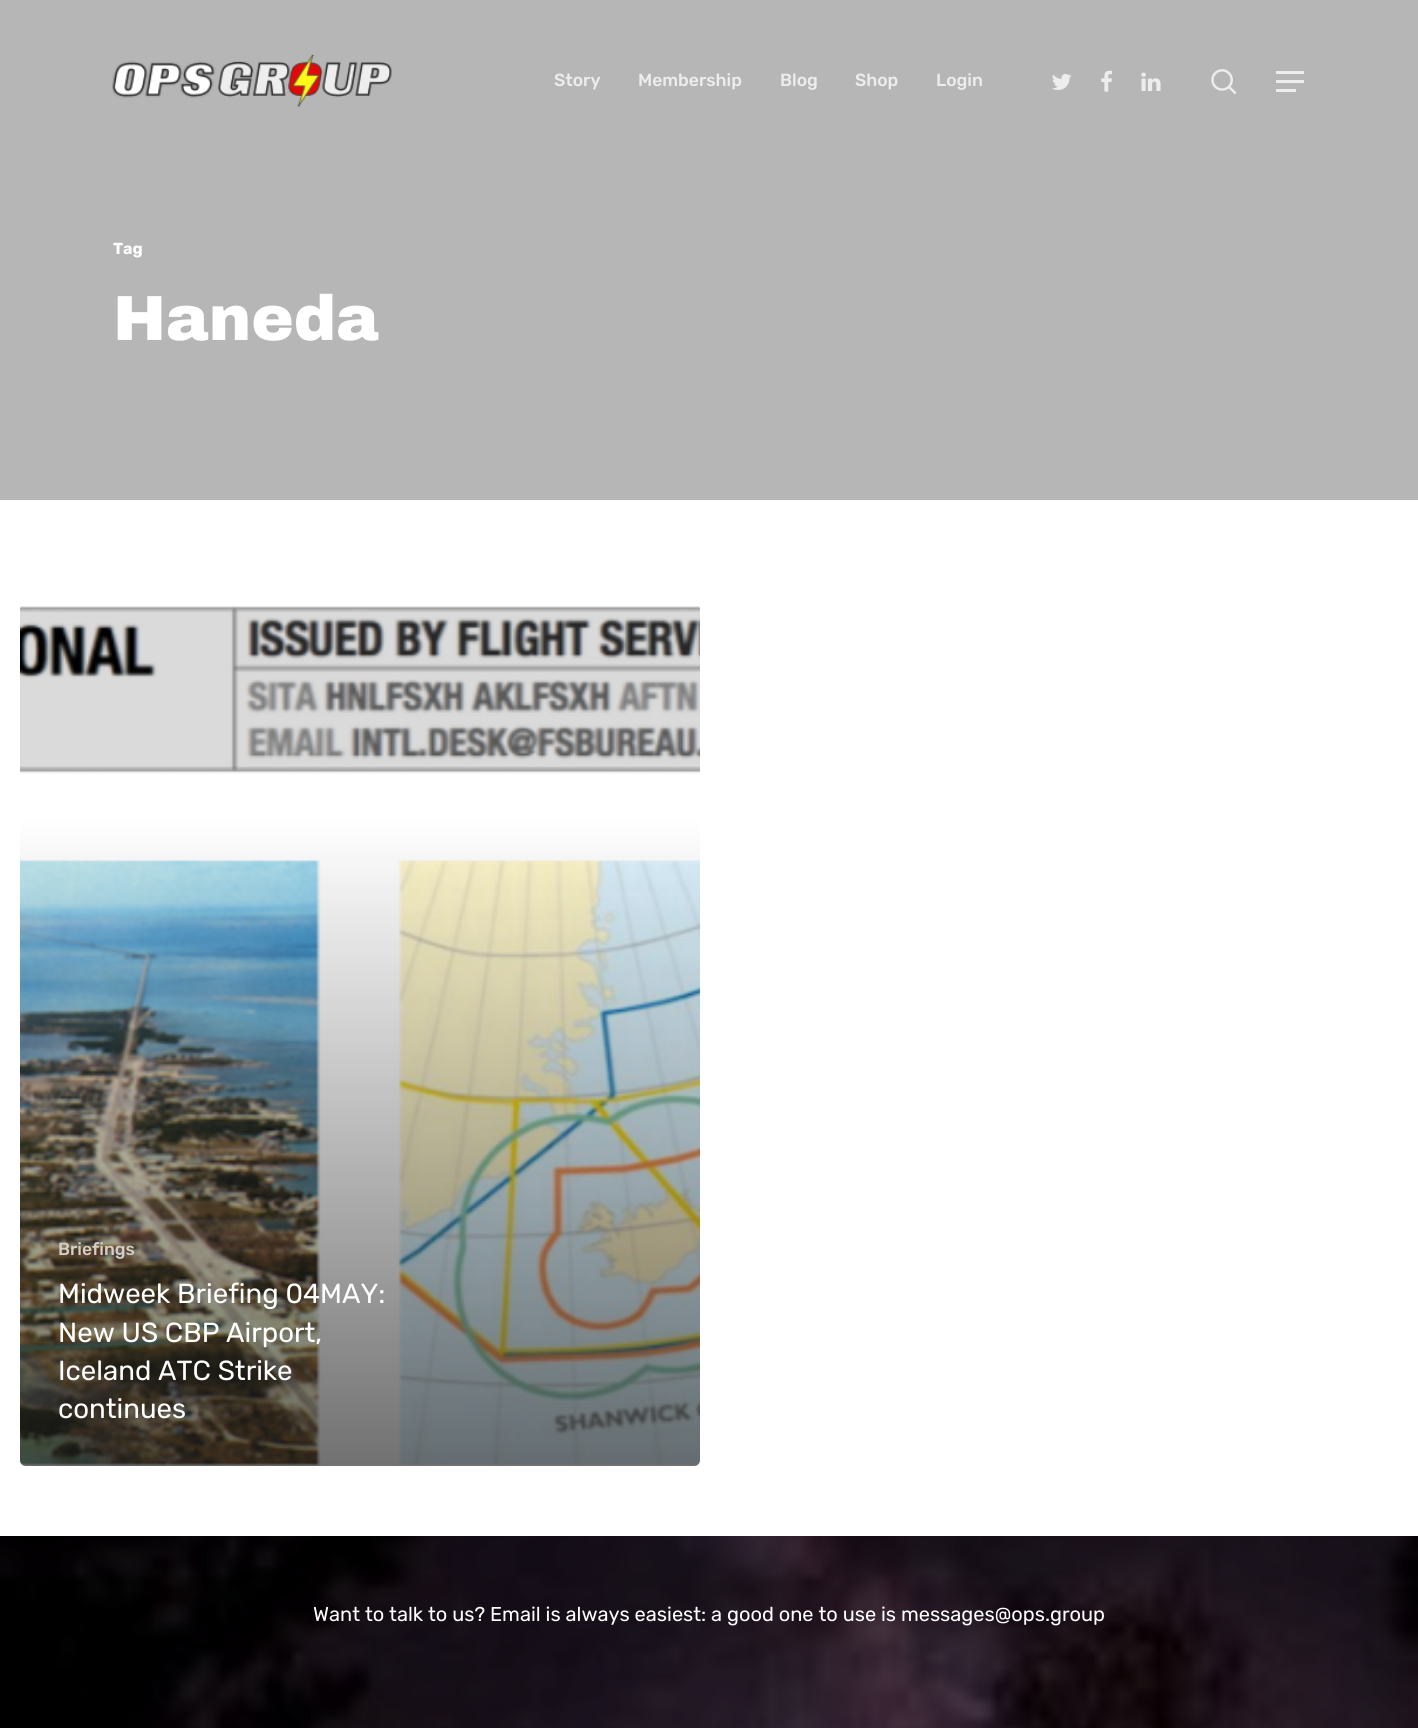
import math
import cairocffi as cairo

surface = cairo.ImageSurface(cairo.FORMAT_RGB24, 1418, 1728)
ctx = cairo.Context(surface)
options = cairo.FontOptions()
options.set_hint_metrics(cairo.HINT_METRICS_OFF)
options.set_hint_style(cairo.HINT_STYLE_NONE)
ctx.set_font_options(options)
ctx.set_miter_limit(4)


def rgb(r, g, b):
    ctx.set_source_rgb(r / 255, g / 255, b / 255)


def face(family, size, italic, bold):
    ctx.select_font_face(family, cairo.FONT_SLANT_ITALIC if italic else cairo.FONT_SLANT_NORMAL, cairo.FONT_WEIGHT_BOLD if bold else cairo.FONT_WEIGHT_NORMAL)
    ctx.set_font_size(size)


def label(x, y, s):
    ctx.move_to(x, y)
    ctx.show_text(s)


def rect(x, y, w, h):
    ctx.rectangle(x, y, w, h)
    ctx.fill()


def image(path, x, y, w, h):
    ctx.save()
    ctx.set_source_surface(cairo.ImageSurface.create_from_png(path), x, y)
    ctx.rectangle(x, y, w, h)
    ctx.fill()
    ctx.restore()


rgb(255, 255, 255)
ctx.paint()
rgb(182, 182, 182)
rect(0, 0, 1418, 500)
image('image0.png', 112, 54, 280, 53)
face('Rubik Medium', 17.5, 0, 0)
rgb(237, 237, 237)
label(554, 86, 'Story')
label(638, 86, 'Membership')
label(780, 86, 'Blog')
label(855, 86, 'Shop')
label(936, 86, 'Login')
image('image1.png', 1052, 74, 20, 16)
image('image2.png', 1101, 70, 11, 22)
image('image3.png', 1141, 72, 20, 19)
image('image4.png', 1211, 69, 26, 25)
rect(1276, 71, 28, 3)
rect(1276, 89, 20, 3)
rect(1276, 80, 28, 3)
face('Rubik', 16, 0, 1)
rgb(255, 255, 255)
label(113, 254, 'Tag')
face('Archivo Black Black', 63.75, 0, 0)
label(113, 340, 'Haneda')
image('image5.png', 20, 603, 680, 863)
gradient = cairo.LinearGradient(361, 819, 361, 1471)
gradient.add_color_stop_rgba(0, 0.137, 0.137, 0.137, 0)
gradient.add_color_stop_rgba(1, 0.137, 0.137, 0.137, 0.65)
ctx.set_source(gradient)
ctx.new_path()
ctx.move_to(20, 819)
ctx.line_to(700, 819)
ctx.line_to(700, 1460)
ctx.curve_to(700, 1463.5, 697.5, 1466, 694, 1466)
ctx.line_to(26, 1466)
ctx.curve_to(22.5, 1466, 20, 1463.5, 20, 1460)
ctx.close_path()
ctx.fill()
face('Rubik Medium', 17.5, 0, 0)
rgb(211, 206, 200)
label(58, 1255, 'Briefings')
face('Rubik', 27.6, 0, 0)
rgb(255, 255, 255)
label(58, 1303, 'Midweek Briefing 04MAY:')
label(58, 1342, 'New US CBP Airport,')
label(58, 1380, 'Iceland ATC Strike')
label(58, 1418, 'continues')
image('image6.png', 0, 1536, 1418, 192)
face('Rubik', 20, 0, 0)
label(313, 1621, 'Want to talk to us? Email is always easiest: a good one to use is messages@ops.group')
surface.write_to_png('render.png')
